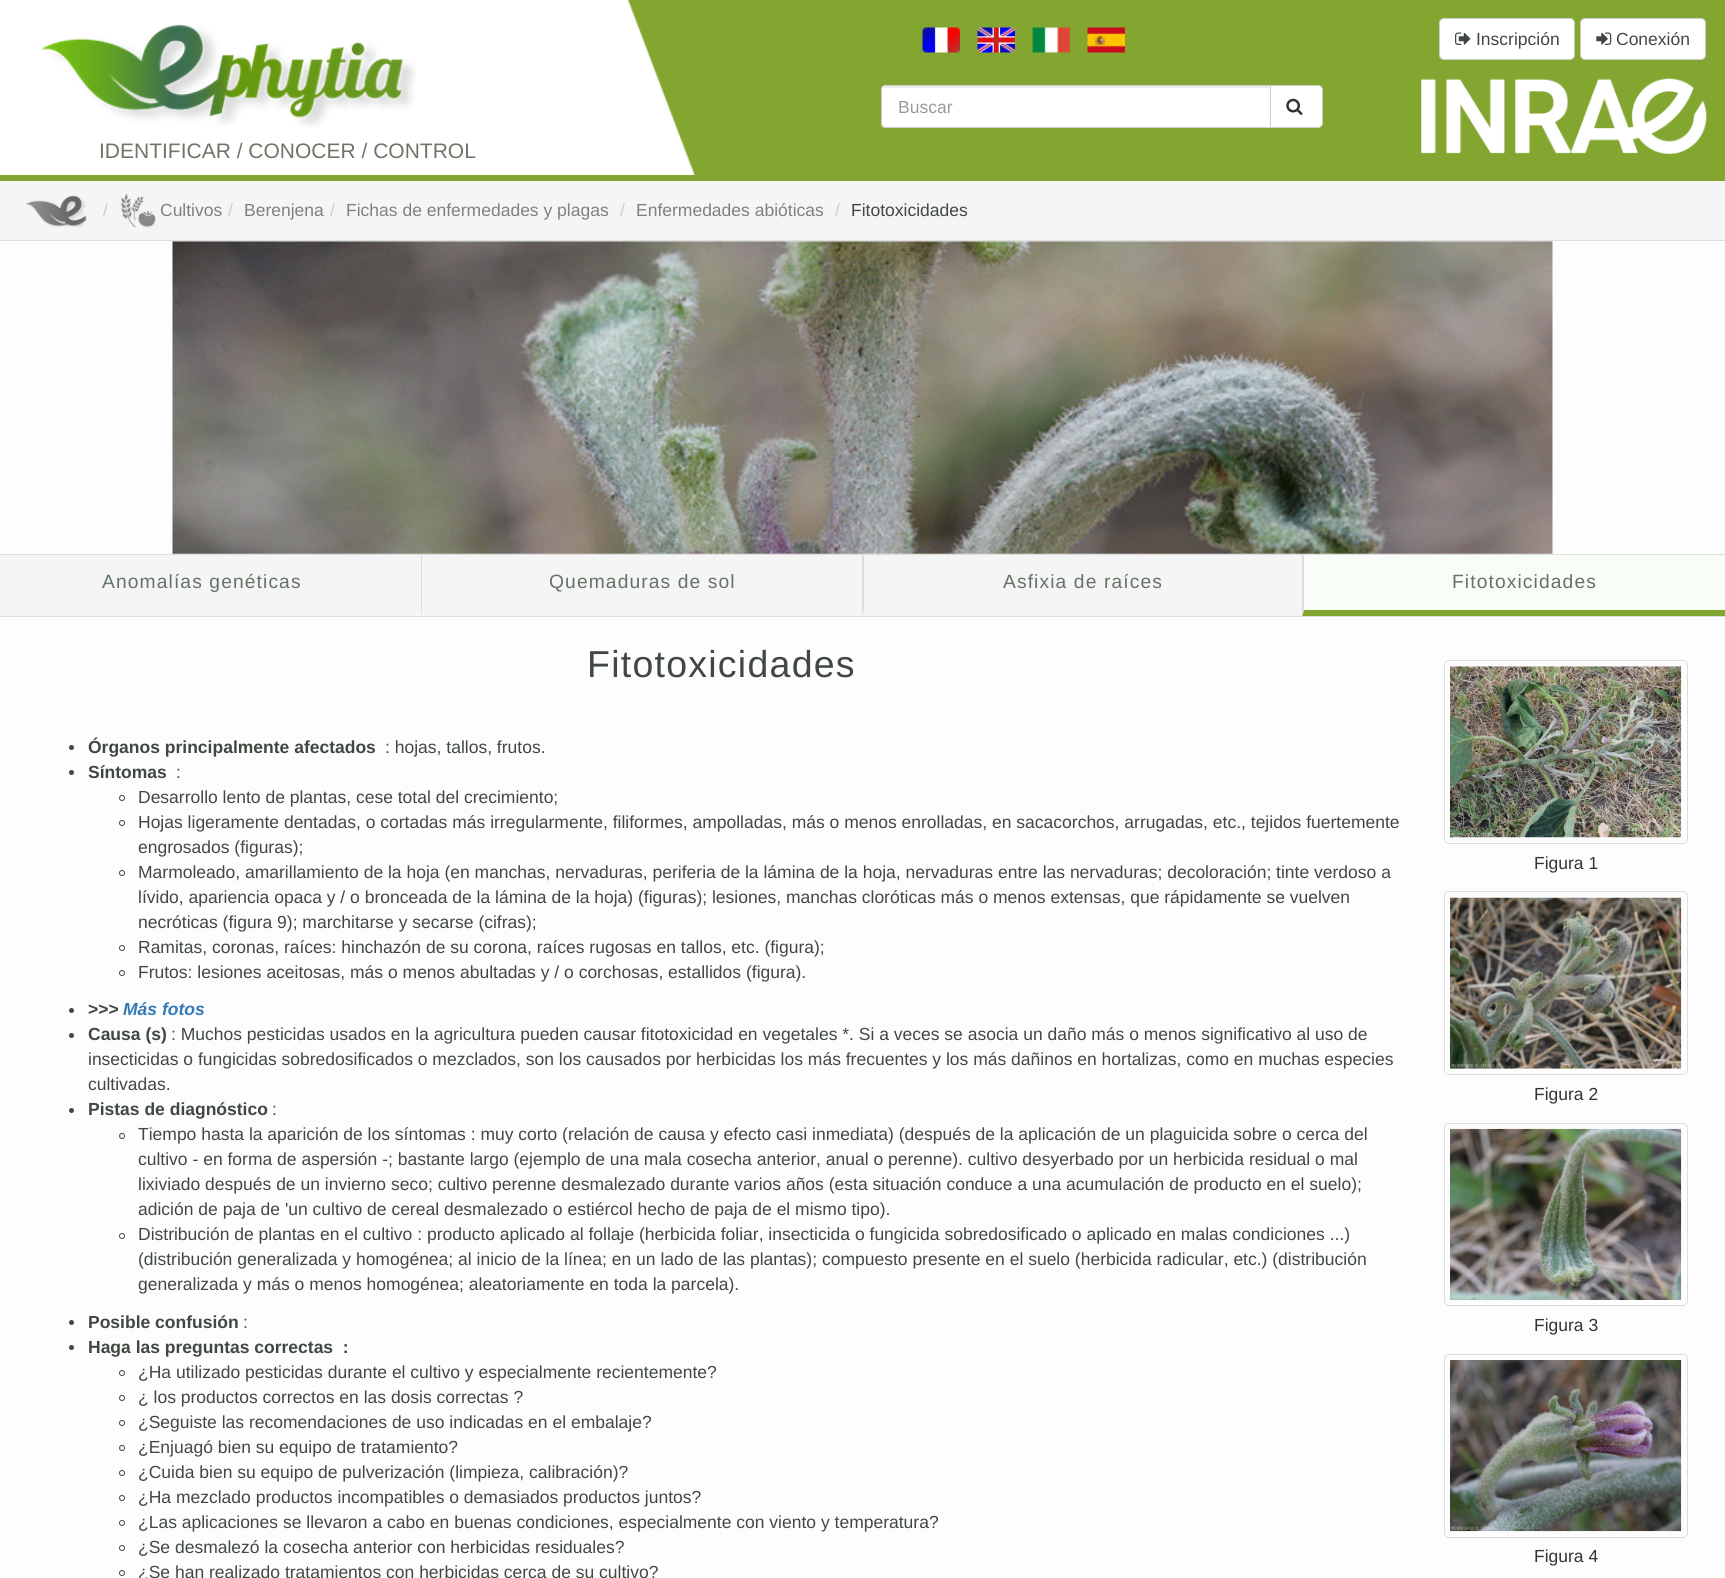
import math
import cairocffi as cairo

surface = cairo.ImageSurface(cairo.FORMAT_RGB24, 1725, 1578)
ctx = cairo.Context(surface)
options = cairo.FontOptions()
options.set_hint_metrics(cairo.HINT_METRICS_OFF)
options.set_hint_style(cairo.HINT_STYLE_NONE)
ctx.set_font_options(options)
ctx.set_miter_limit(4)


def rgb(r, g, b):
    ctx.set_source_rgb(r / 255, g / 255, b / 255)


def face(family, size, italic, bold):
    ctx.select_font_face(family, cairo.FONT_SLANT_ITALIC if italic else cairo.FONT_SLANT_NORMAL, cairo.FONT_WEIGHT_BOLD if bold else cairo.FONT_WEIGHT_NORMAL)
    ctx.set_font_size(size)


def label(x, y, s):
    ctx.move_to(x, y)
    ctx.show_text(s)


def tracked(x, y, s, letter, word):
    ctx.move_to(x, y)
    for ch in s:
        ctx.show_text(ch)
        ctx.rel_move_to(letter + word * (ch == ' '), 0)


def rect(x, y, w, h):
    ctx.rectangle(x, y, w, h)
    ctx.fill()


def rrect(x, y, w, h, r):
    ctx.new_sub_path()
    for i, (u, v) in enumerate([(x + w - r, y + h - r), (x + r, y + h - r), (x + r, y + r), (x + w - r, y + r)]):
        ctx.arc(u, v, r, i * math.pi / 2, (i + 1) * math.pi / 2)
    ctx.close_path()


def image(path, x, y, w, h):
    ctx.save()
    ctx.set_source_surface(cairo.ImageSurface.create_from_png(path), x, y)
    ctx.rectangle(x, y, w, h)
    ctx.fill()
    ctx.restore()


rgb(253, 253, 253)
ctx.paint()
rgb(130, 166, 47)
rect(0, 0, 1725, 181)
image('image0.png', 575, 0, 121, 175)
image('image1.png', 922, 27, 38, 26)
image('image2.png', 977, 27, 38, 26)
image('image3.png', 1032, 27, 38, 26)
image('image4.png', 1087, 27, 38, 26)
rgb(255, 255, 255)
rrect(1439.5, 18.5, 135, 41, 4.5)
ctx.fill_preserve()
rgb(204, 204, 204)
ctx.set_line_width(1)
ctx.stroke()
image('image5.png', 1455, 32, 16, 13)
face('Liberation Sans', 17.5, 0, 0)
rgb(65, 72, 65)
label(1476, 45, 'Inscripción')
rgb(255, 255, 255)
rrect(1580.5, 18.5, 125, 41, 4.5)
ctx.fill_preserve()
rgb(204, 204, 204)
ctx.stroke()
image('image6.png', 1596, 32, 16, 13)
rgb(65, 72, 65)
label(1616, 45, 'Conexión')
rgb(255, 255, 255)
ctx.new_path()
ctx.move_to(886, 85)
ctx.line_to(1271, 85)
ctx.line_to(1271, 128)
ctx.line_to(886, 128)
ctx.curve_to(883, 128, 881, 126, 881, 123)
ctx.line_to(881, 90)
ctx.curve_to(881, 87, 883, 85, 886, 85)
ctx.close_path()
ctx.fill()
rgb(236, 236, 236)
ctx.new_path()
ctx.move_to(886, 88)
ctx.line_to(1270, 88)
ctx.line_to(1270, 86)
ctx.line_to(887, 86)
ctx.curve_to(885, 86, 884, 87, 883, 89)
ctx.close_path()
ctx.fill()
ctx.new_path()
ctx.move_to(886, 85.5)
ctx.line_to(1270.5, 85.5)
ctx.line_to(1270.5, 127.5)
ctx.line_to(886, 127.5)
ctx.curve_to(883.5, 127.5, 881.5, 125.5, 881.5, 123)
ctx.line_to(881.5, 90)
ctx.curve_to(881.5, 87.5, 883.5, 85.5, 886, 85.5)
ctx.close_path()
rgb(204, 204, 204)
ctx.stroke()
rgb(153, 153, 153)
label(898, 113, 'Buscar')
rgb(255, 255, 255)
ctx.new_path()
ctx.move_to(1270.5, 85.5)
ctx.line_to(1318, 85.5)
ctx.curve_to(1320.5, 85.5, 1322.5, 87.5, 1322.5, 90)
ctx.line_to(1322.5, 123)
ctx.curve_to(1322.5, 125.5, 1320.5, 127.5, 1318, 127.5)
ctx.line_to(1270.5, 127.5)
ctx.close_path()
ctx.fill_preserve()
rgb(204, 204, 204)
ctx.stroke()
image('image7.png', 1286, 98, 17, 17)
image('image8.png', 1421, 78, 286, 76)
rgb(255, 255, 255)
rect(0, 0, 575, 175)
image('image9.png', 41, 24, 375, 103)
face('Liberation Sans', 21, 0, 0)
rgb(112, 116, 103)
label(99, 158, 'IDENTIFICAR / CONOCER / CONTROL')
rgb(221, 221, 221)
rect(0, 240, 1725, 1)
rgb(245, 245, 245)
rect(0, 181, 1725, 59)
image('image10.png', 25, 195, 62, 32)
face('Liberation Sans', 17.5, 0, 0)
rgb(204, 204, 204)
label(103, 216, '/')
image('image11.png', 120, 193, 36, 35)
rgb(128, 128, 128)
label(160, 216, 'Cultivos')
rgb(204, 204, 204)
label(228, 216, '/')
rgb(128, 128, 128)
label(244, 216, 'Berenjena')
rgb(204, 204, 204)
label(330, 216, '/')
rgb(128, 128, 128)
label(346, 216, 'Fichas de enfermedades y plagas')
rgb(204, 204, 204)
label(620, 216, '/')
rgb(128, 128, 128)
label(636, 216, 'Enfermedades abióticas')
rgb(204, 204, 204)
label(835, 216, '/')
rgb(65, 72, 65)
label(851, 216, 'Fitotoxicidades')
image('image12.png', 172, 241, 1381, 313)
rgb(221, 221, 221)
rect(0, 616, 1725, 1)
rgb(245, 245, 245)
rect(0, 555, 1303, 61)
rgb(221, 221, 221)
rect(0, 554, 1725, 1)
face('Liberation Sans', 19.25, 0, 0)
rgb(100, 115, 101)
tracked(102, 588, 'Anomalías genéticas', 1.1, 0)
rgb(221, 221, 221)
ctx.new_path()
ctx.move_to(421, 616)
ctx.line_to(421, 554)
ctx.line_to(422, 555)
ctx.line_to(422, 610)
ctx.close_path()
ctx.fill()
rgb(100, 115, 101)
tracked(549, 588, 'Quemaduras de sol', 1.1, 0)
rgb(221, 221, 221)
ctx.new_path()
ctx.move_to(862, 616)
ctx.line_to(862, 554)
ctx.line_to(864, 555)
ctx.line_to(864, 610)
ctx.close_path()
ctx.fill()
rgb(100, 115, 101)
tracked(1003, 588, 'Asfixia de raíces', 1.1, 0)
rgb(130, 166, 47)
ctx.new_path()
ctx.move_to(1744, 616)
ctx.line_to(1302, 616)
ctx.line_to(1304, 610)
ctx.line_to(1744, 610)
ctx.close_path()
ctx.fill()
rgb(221, 221, 221)
ctx.new_path()
ctx.move_to(1302, 616)
ctx.line_to(1302, 554)
ctx.line_to(1304, 555)
ctx.line_to(1304, 610)
ctx.close_path()
ctx.fill()
rgb(248, 253, 247)
rect(1304, 555, 421, 55)
rgb(100, 115, 101)
tracked(1452, 588, 'Fitotoxicidades', 1.1, 0)
face('Liberation Sans', 37.5, 0, 0)
rgb(65, 72, 65)
tracked(587, 677, 'Fitotoxicidades', 1.25, 0)
ctx.new_path()
ctx.arc(71.5, 747.5, 2.5, 0, 2 * math.pi)
ctx.fill()
face('Liberation Sans', 17.5, 0, 1)
label(88, 753, 'Órganos principalmente afectados')
face('Liberation Sans', 17.5, 0, 0)
label(385, 753, ': hojas, tallos, frutos.')
ctx.new_path()
ctx.arc(71.5, 772.5, 2.5, 0, 2 * math.pi)
ctx.fill()
face('Liberation Sans', 17.5, 0, 1)
label(88, 778, 'Síntomas')
face('Liberation Sans', 17.5, 0, 0)
label(176, 778, ':')
ctx.new_path()
ctx.arc(122, 798, 2.5, 0, 2 * math.pi)
ctx.stroke()
label(138, 803, 'Desarrollo lento de plantas, cese total del crecimiento;')
ctx.new_path()
ctx.arc(122, 823, 2.5, 0, 2 * math.pi)
ctx.stroke()
label(138, 828, 'Hojas ligeramente dentadas, o cortadas más irregularmente, filiformes, ampolladas, más o menos enrolladas, en sacacorchos, arrugadas, etc., tejidos fuertemente')
label(138, 853, 'engrosados (figuras);')
ctx.new_path()
ctx.arc(122, 873, 2.5, 0, 2 * math.pi)
ctx.stroke()
label(138, 878, 'Marmoleado, amarillamiento de la hoja (en manchas, nervaduras, periferia de la lámina de la hoja, nervaduras entre las nervaduras; decoloración; tinte verdoso a')
label(138, 903, 'lívido, apariencia opaca y / o bronceada de la lámina de la hoja) (figuras); lesiones, manchas cloróticas más o menos extensas, que rápidamente se vuelven')
label(138, 928, 'necróticas (figura 9); marchitarse y secarse (cifras);')
ctx.new_path()
ctx.arc(122, 948, 2.5, 0, 2 * math.pi)
ctx.stroke()
label(138, 953, 'Ramitas, coronas, raíces: hinchazón de su corona, raíces rugosas en tallos, etc. (figura);')
ctx.new_path()
ctx.arc(122, 973, 2.5, 0, 2 * math.pi)
ctx.stroke()
label(138, 978, 'Frutos: lesiones aceitosas, más o menos abultadas y / o corchosas, estallidos (figura).')
ctx.new_path()
ctx.arc(71.5, 1010.5, 2.5, 0, 2 * math.pi)
ctx.fill()
face('Liberation Sans', 17.5, 0, 1)
label(88, 1015, '>>>')
face('Liberation Sans', 17.5, 1, 1)
rgb(51, 122, 183)
label(123, 1015, 'Más fotos')
rgb(65, 72, 65)
ctx.new_path()
ctx.arc(71.5, 1035.5, 2.5, 0, 2 * math.pi)
ctx.fill()
face('Liberation Sans', 17.5, 0, 1)
label(88, 1040, 'Causa (s)')
face('Liberation Sans', 17.5, 0, 0)
label(171, 1040, ': Muchos pesticidas usados en la agricultura pueden causar fitotoxicidad en vegetales *. Si a veces se asocia un daño más o menos significativo al uso de')
label(88, 1065, 'insecticidas o fungicidas sobredosificados o mezclados, son los causados por herbicidas los más frecuentes y los más dañinos en hortalizas, como en muchas especies')
label(88, 1090, 'cultivadas.')
ctx.new_path()
ctx.arc(71.5, 1110.5, 2.5, 0, 2 * math.pi)
ctx.fill()
face('Liberation Sans', 17.5, 0, 1)
label(88, 1115, 'Pistas de diagnóstico')
face('Liberation Sans', 17.5, 0, 0)
label(272, 1115, ':')
ctx.new_path()
ctx.arc(122, 1136, 2.5, 0, 2 * math.pi)
ctx.stroke()
label(138, 1140, 'Tiempo hasta la aparición de los síntomas : muy corto (relación de causa y efecto casi inmediata) (después de la aplicación de un plaguicida sobre o cerca del')
label(138, 1165, 'cultivo - en forma de aspersión -; bastante largo (ejemplo de una mala cosecha anterior, anual o perenne). cultivo desyerbado por un herbicida residual o mal')
label(138, 1190, 'lixiviado después de un invierno seco; cultivo perenne desmalezado durante varios años (esta situación conduce a una acumulación de producto en el suelo);')
label(138, 1215, 'adición de paja de \'un cultivo de cereal desmalezado o estiércol hecho de paja de el mismo tipo).')
ctx.new_path()
ctx.arc(122, 1236, 2.5, 0, 2 * math.pi)
ctx.stroke()
label(138, 1240, 'Distribución de plantas en el cultivo : producto aplicado al follaje (herbicida foliar, insecticida o fungicida sobredosificado o aplicado en malas condiciones ...)')
label(138, 1265, '(distribución generalizada y homogénea; al inicio de la línea; en un lado de las plantas); compuesto presente en el suelo (herbicida radicular, etc.) (distribución')
label(138, 1290, 'generalizada y más o menos homogénea; aleatoriamente en toda la parcela).')
ctx.new_path()
ctx.arc(71.5, 1322.5, 2.5, 0, 2 * math.pi)
ctx.fill()
face('Liberation Sans', 17.5, 0, 1)
label(88, 1328, 'Posible confusión')
face('Liberation Sans', 17.5, 0, 0)
label(243, 1328, ':')
ctx.new_path()
ctx.arc(71.5, 1347.5, 2.5, 0, 2 * math.pi)
ctx.fill()
face('Liberation Sans', 17.5, 0, 1)
label(88, 1353, 'Haga las preguntas correctas  :')
ctx.new_path()
ctx.arc(122, 1373, 2.5, 0, 2 * math.pi)
ctx.stroke()
face('Liberation Sans', 17.5, 0, 0)
label(138, 1378, '¿Ha utilizado pesticidas durante el cultivo y especialmente recientemente?')
ctx.new_path()
ctx.arc(122, 1398, 2.5, 0, 2 * math.pi)
ctx.stroke()
label(138, 1403, '¿ los productos correctos en las dosis correctas ?')
ctx.new_path()
ctx.arc(122, 1423, 2.5, 0, 2 * math.pi)
ctx.stroke()
label(138, 1428, '¿Seguiste las recomendaciones de uso indicadas en el embalaje?')
ctx.new_path()
ctx.arc(122, 1448, 2.5, 0, 2 * math.pi)
ctx.stroke()
label(138, 1453, '¿Enjuagó bien su equipo de tratamiento?')
ctx.new_path()
ctx.arc(122, 1473, 2.5, 0, 2 * math.pi)
ctx.stroke()
label(138, 1478, '¿Cuida bien su equipo de pulverización (limpieza, calibración)?')
ctx.new_path()
ctx.arc(122, 1498, 2.5, 0, 2 * math.pi)
ctx.stroke()
label(138, 1503, '¿Ha mezclado productos incompatibles o demasiados productos juntos?')
ctx.new_path()
ctx.arc(122, 1523, 2.5, 0, 2 * math.pi)
ctx.stroke()
label(138, 1528, '¿Las aplicaciones se llevaron a cabo en buenas condiciones, especialmente con viento y temperatura?')
ctx.new_path()
ctx.arc(122, 1548, 2.5, 0, 2 * math.pi)
ctx.stroke()
label(138, 1553, '¿Se desmalezó la cosecha anterior con herbicidas residuales?')
ctx.new_path()
ctx.arc(122, 1573, 2.5, 0, 2 * math.pi)
ctx.stroke()
label(138, 1578, '¿Se han realizado tratamientos con herbicidas cerca de su cultivo?')
rrect(1444.5, 660.5, 243, 183, 4.5)
rgb(221, 221, 221)
ctx.stroke()
image('image13.png', 1450, 666, 232, 172)
rgb(51, 51, 51)
label(1534, 869, 'Figura 1')
rrect(1444.5, 891.5, 243, 183, 4.5)
rgb(221, 221, 221)
ctx.stroke()
image('image14.png', 1450, 897, 232, 172)
rgb(51, 51, 51)
label(1534, 1100, 'Figura 2')
rrect(1444.5, 1123.5, 243, 182, 4.5)
rgb(221, 221, 221)
ctx.stroke()
image('image15.png', 1450, 1128, 232, 172)
rgb(51, 51, 51)
label(1534, 1331, 'Figura 3')
rrect(1444.5, 1354.5, 243, 183, 4.5)
rgb(221, 221, 221)
ctx.stroke()
image('image16.png', 1450, 1360, 232, 172)
rgb(51, 51, 51)
label(1534, 1562, 'Figura 4')
surface.write_to_png('render.png')
